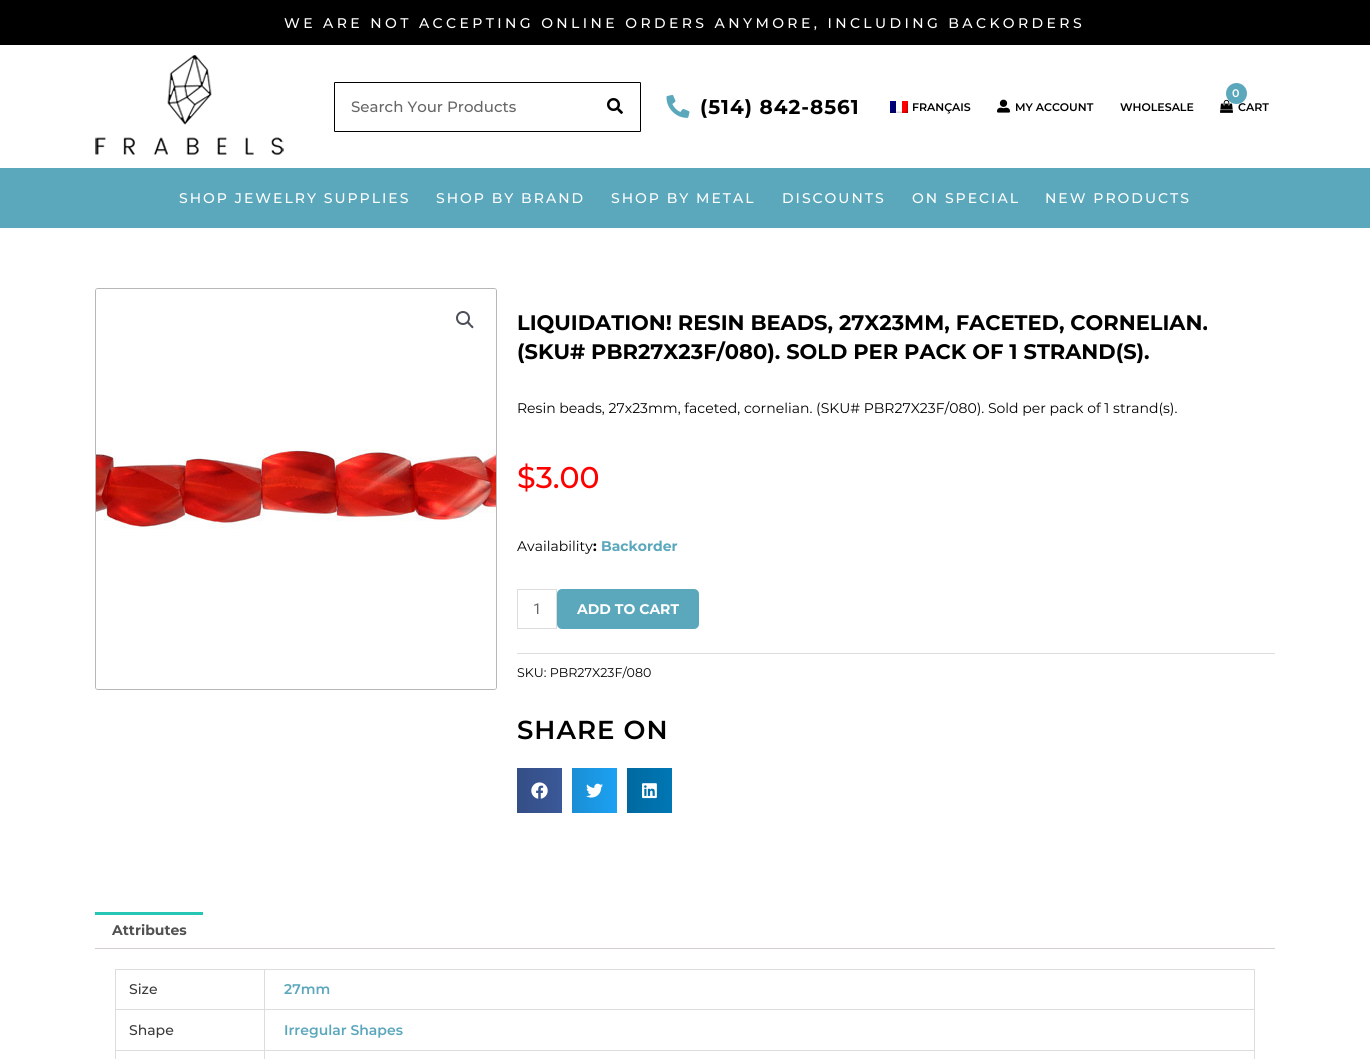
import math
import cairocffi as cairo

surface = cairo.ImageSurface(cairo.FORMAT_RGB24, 1370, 1059)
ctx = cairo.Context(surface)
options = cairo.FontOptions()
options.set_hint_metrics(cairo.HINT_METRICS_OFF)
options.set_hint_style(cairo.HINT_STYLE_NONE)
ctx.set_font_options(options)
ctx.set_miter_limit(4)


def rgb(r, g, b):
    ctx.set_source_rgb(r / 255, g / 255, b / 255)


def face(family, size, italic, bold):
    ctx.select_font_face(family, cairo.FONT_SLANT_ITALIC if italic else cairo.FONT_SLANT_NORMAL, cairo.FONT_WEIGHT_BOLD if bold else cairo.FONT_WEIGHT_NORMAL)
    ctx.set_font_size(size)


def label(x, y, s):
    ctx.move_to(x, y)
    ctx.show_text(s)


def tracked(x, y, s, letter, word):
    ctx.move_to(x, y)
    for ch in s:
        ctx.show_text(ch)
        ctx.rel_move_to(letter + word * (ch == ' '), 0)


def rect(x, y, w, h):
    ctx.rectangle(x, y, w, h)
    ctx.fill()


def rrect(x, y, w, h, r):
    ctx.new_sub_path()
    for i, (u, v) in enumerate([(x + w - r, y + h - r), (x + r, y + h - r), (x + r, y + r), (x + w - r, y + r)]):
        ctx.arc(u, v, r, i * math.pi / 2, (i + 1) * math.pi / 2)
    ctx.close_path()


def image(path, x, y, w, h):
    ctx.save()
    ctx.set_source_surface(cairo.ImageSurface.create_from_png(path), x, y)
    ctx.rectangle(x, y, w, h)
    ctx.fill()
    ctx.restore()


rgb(255, 255, 255)
ctx.paint()
rgb(0, 0, 0)
rect(0, 0, 1370, 45)
face('Montserrat Medium', 14, 0, 0)
rgb(255, 255, 255)
tracked(284, 28, 'WE ARE NOT ACCEPTING ONLINE ORDERS ANYMORE, INCLUDING BACKORDERS', 3.4, 0)
image('image0.png', 95, 55, 189, 100)
rrect(334.5, 82.5, 306, 49, 0.5)
rgb(0, 0, 0)
ctx.set_line_width(1)
ctx.stroke()
face('Montserrat Medium', 15, 0, 0)
rgb(102, 102, 102)
label(351, 112, 'Search Your Products')
image('image1.png', 607, 98, 16, 16)
image('image2.png', 666, 94, 24, 24)
face('Montserrat', 20, 0, 1)
rgb(0, 0, 0)
tracked(700, 114, '(514) 842-8561', 1, 0)
image('image3.png', 890, 101, 18, 12)
face('Montserrat SemiBold', 11, 0, 0)
label(912, 111, 'FRANÇAIS')
image('image4.png', 997, 99, 13, 14)
label(1015, 111, 'MY ACCOUNT')
label(1120, 111, 'WHOLESALE')
image('image5.png', 1220, 99, 13, 14)
label(1238, 111, 'CART')
rgb(91, 167, 188)
ctx.new_path()
ctx.arc(1236.5, 93.5, 10.5, 0, 2 * math.pi)
ctx.fill()
rgb(255, 255, 255)
label(1232, 97, '0')
rgb(91, 167, 188)
rect(0, 168, 1370, 60)
face('Montserrat Medium', 14, 0, 0)
rgb(255, 255, 255)
tracked(179, 203, 'SHOP JEWELRY SUPPLIES', 2, 0)
tracked(436, 203, 'SHOP BY BRAND', 2, 0)
tracked(611, 203, 'SHOP BY METAL', 2, 0)
tracked(782, 203, 'DISCOUNTS', 2, 0)
tracked(912, 203, 'ON SPECIAL', 2, 0)
tracked(1045, 203, 'NEW PRODUCTS', 2, 0)
rrect(95.5, 288.5, 401, 401, 2.5)
rgb(183, 183, 183)
ctx.stroke()
image('image6.png', 96, 289, 400, 400)
ctx.arc(463, 318, 6, 0, 2 * math.pi)
rgb(75, 79, 88)
ctx.set_line_width(2)
ctx.stroke()
ctx.new_path()
ctx.move_to(467.5, 322)
ctx.curve_to(469, 321, 470.5, 323.5, 471, 324.5)
ctx.curve_to(471.5, 325, 474.5, 326.5, 473, 328)
ctx.curve_to(472, 329, 470.5, 326.5, 469.5, 325.5)
ctx.curve_to(469, 325, 466.5, 323.5, 467.5, 322)
ctx.close_path()
ctx.fill()
face('Montserrat', 21, 0, 1)
rgb(0, 0, 0)
label(517, 330, 'LIQUIDATION! RESIN BEADS, 27X23MM, FACETED, CORNELIAN.')
label(517, 359, '(SKU# PBR27X23F/080). SOLD PER PACK OF 1 STRAND(S).')
face('Montserrat', 14, 0, 0)
label(517, 413, 'Resin beads, 27x23mm, faceted, cornelian. (SKU# PBR27X23F/080). Sold per pack of 1 strand(s).')
face('Montserrat Medium', 30, 0, 0)
rgb(255, 0, 0)
label(517, 488, '$3.00')
face('Montserrat', 14, 0, 0)
rgb(0, 0, 0)
label(517, 551, 'Availability')
face('Montserrat', 14, 0, 1)
label(593, 551, ':')
rgb(91, 167, 188)
label(601, 551, 'Backorder')
ctx.rectangle(517.5, 589.5, 39, 39)
rgb(221, 221, 221)
ctx.set_line_width(1)
ctx.stroke()
face('Roboto', 15, 0, 0)
rgb(102, 102, 102)
label(533, 614, '1')
rgb(91, 167, 188)
rrect(557, 589, 142, 40, 5)
ctx.fill()
face('Montserrat', 14, 0, 1)
rgb(255, 255, 255)
label(577, 614, 'ADD TO CART')
rgb(221, 221, 221)
rect(517, 653, 758, 1)
face('Montserrat', 12.6, 0, 0)
rgb(0, 0, 0)
label(517, 677, 'SKU: PBR27X23F/080')
face('Montserrat SemiBold', 26, 0, 0)
tracked(517, 739, 'SHARE ON', 1, 0)
gradient = cairo.LinearGradient(517, 791, 562, 791)
gradient.add_color_stop_rgba(0, 0.204, 0.306, 0.525, 1)
gradient.add_color_stop_rgba(1, 0.231, 0.349, 0.596, 1)
ctx.set_source(gradient)
rect(517, 768, 45, 45)
image('image7.png', 531, 782, 17, 17)
gradient = cairo.LinearGradient(572, 791, 617, 791)
gradient.add_color_stop_rgba(0, 0.102, 0.557, 0.835, 1)
gradient.add_color_stop_rgba(1, 0.114, 0.631, 0.949, 1)
ctx.set_source(gradient)
rect(572, 768, 45, 45)
image('image8.png', 586, 783, 17, 15)
gradient = cairo.LinearGradient(627, 791, 672, 791)
gradient.add_color_stop_rgba(0, 0, 0.412, 0.624, 1)
gradient.add_color_stop_rgba(1, 0, 0.467, 0.71, 1)
ctx.set_source(gradient)
rect(627, 768, 45, 45)
image('image9.png', 642, 783, 15, 16)
rgb(37, 198, 179)
rect(95, 912, 108, 3)
face('Montserrat', 14, 0, 1)
rgb(81, 81, 81)
label(112, 935, 'Attributes')
rgb(211, 206, 210)
rect(95, 948, 1180, 1)
rgb(221, 221, 221)
rect(115, 969, 1140, 1)
rect(264, 970, 1, 89)
rect(115, 1009, 150, 1)
rect(115, 970, 1, 40)
face('Montserrat Medium', 14, 0, 0)
rgb(58, 58, 58)
label(129, 994, 'Size')
rgb(221, 221, 221)
rect(1254, 970, 1, 89)
rect(265, 1009, 990, 1)
face('Montserrat SemiBold', 14, 0, 0)
rgb(91, 167, 188)
label(284, 994, '27mm')
rgb(221, 221, 221)
rect(115, 1050, 1140, 1)
rect(115, 1010, 1, 49)
face('Montserrat Medium', 14, 0, 0)
rgb(58, 58, 58)
label(129, 1035, 'Shape')
face('Montserrat SemiBold', 14, 0, 0)
rgb(91, 167, 188)
label(284, 1035, 'Irregular Shapes')
surface.write_to_png('render.png')
